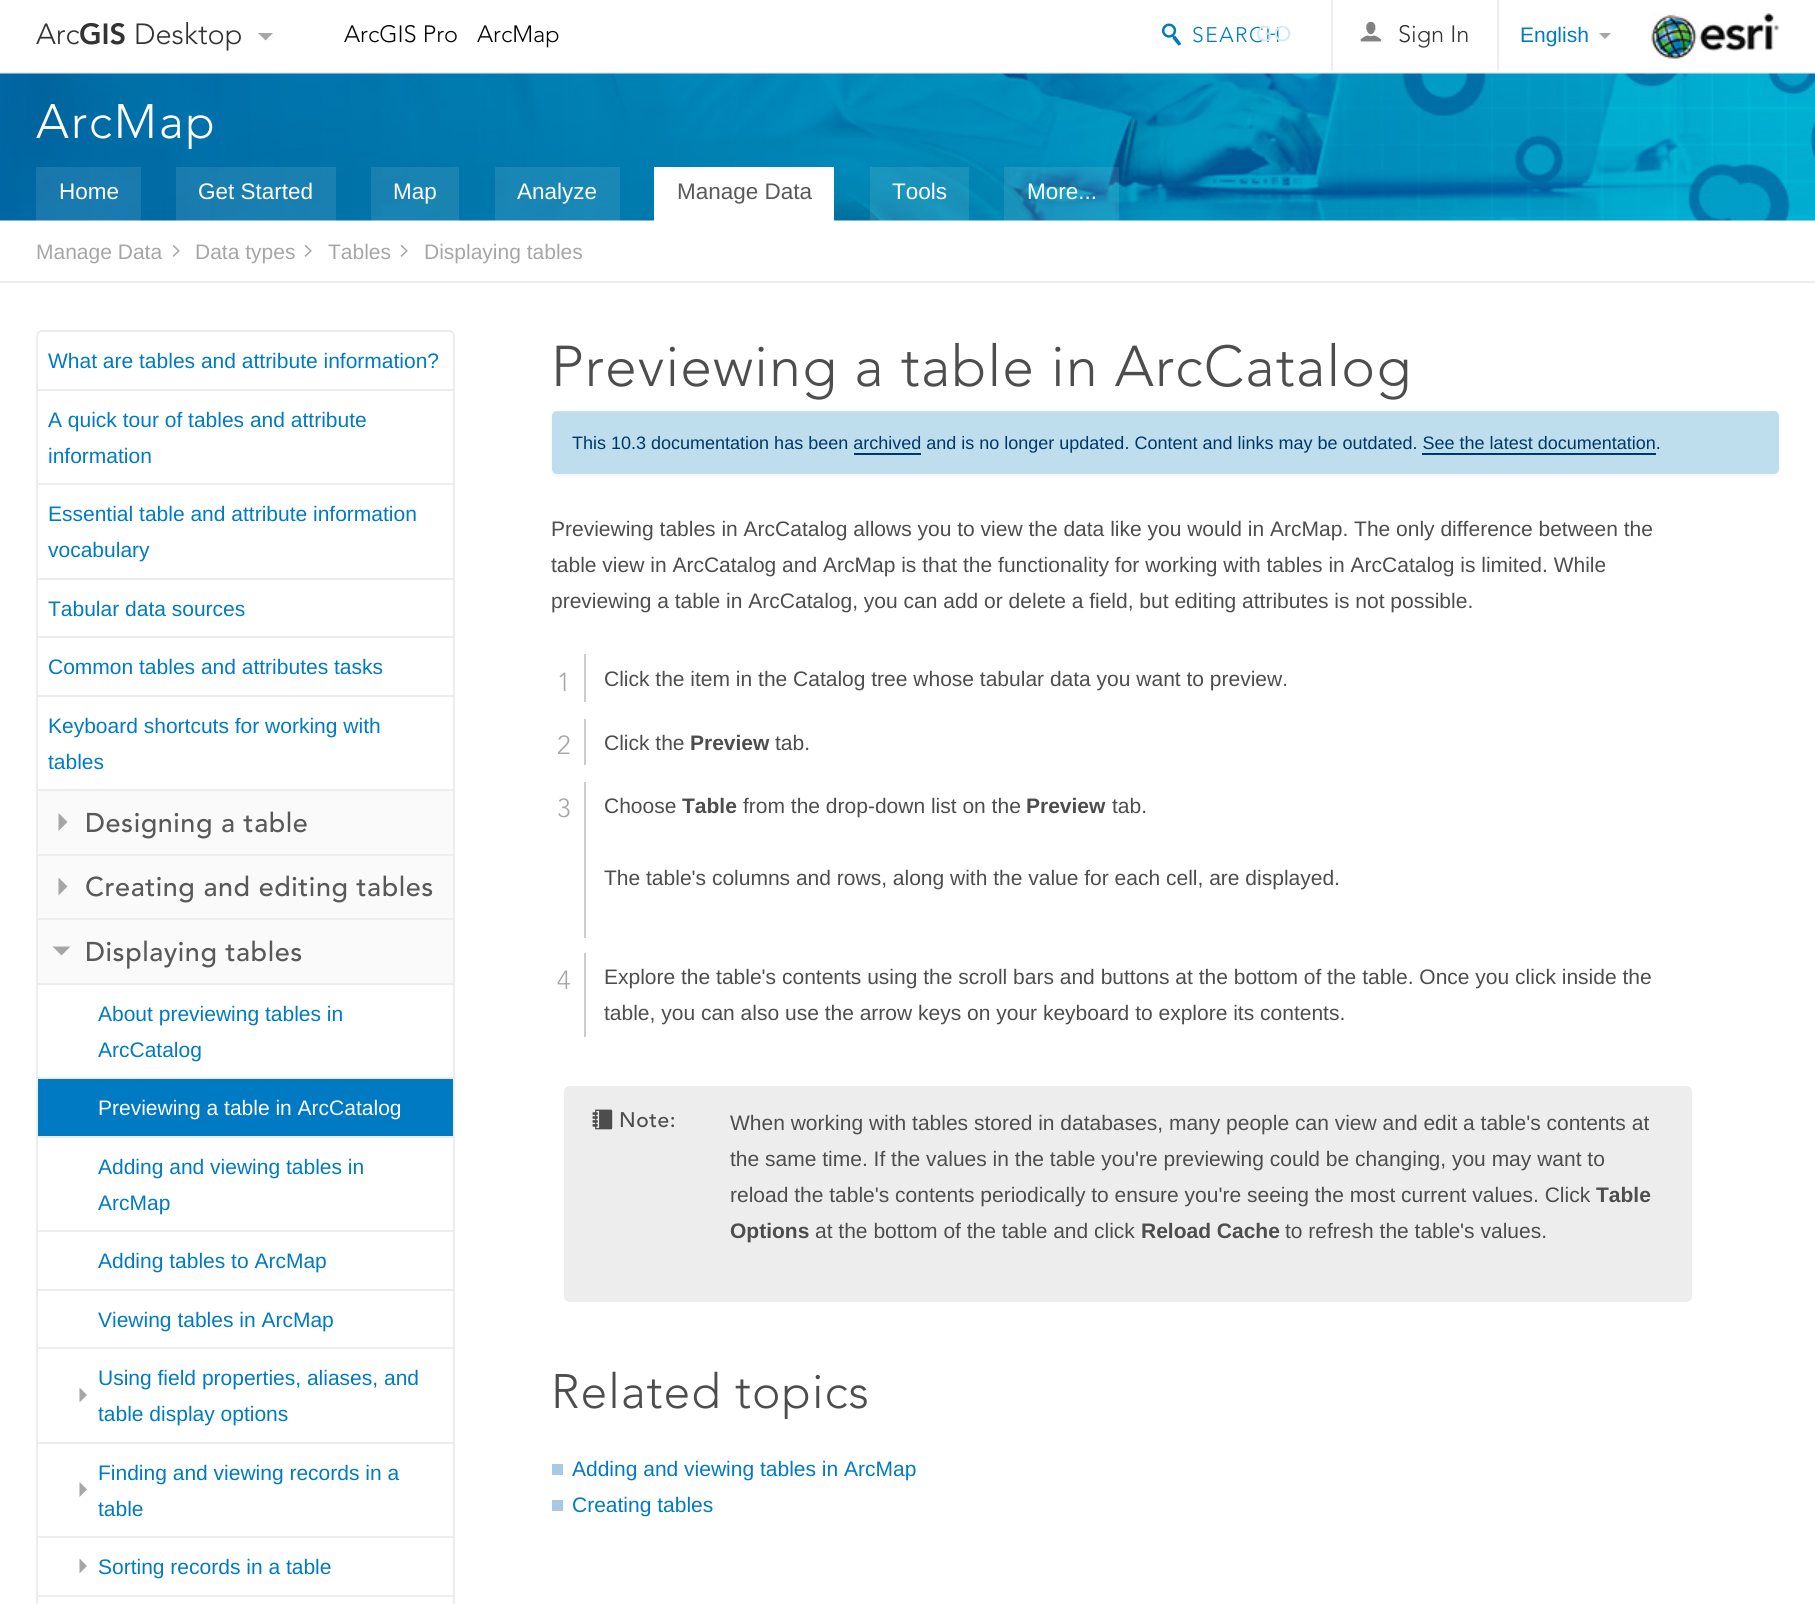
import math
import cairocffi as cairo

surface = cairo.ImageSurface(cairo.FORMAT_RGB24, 1815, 1604)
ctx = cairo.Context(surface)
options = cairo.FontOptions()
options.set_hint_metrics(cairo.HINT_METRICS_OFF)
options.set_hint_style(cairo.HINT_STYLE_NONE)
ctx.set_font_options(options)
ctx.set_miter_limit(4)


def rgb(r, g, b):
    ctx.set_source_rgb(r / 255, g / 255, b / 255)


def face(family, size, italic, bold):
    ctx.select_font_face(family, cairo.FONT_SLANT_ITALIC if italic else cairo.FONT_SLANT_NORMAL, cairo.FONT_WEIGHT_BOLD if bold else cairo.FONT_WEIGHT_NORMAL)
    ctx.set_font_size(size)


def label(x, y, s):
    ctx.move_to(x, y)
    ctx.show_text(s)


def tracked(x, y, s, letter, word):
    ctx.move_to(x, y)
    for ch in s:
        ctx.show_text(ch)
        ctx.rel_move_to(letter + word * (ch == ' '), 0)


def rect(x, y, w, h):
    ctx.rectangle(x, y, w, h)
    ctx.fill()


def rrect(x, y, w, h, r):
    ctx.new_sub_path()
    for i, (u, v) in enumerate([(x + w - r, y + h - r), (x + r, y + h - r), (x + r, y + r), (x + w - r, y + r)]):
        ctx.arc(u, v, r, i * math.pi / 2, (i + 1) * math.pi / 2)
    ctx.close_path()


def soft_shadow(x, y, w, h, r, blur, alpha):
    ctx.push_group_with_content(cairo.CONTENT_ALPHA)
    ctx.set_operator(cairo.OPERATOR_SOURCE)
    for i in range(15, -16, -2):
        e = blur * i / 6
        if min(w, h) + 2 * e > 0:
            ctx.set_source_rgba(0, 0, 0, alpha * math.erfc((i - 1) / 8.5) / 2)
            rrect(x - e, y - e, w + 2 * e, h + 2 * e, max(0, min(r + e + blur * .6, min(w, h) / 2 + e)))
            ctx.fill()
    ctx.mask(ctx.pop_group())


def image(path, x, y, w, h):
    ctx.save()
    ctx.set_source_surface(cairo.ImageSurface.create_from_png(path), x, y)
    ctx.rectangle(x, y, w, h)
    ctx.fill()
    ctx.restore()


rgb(255, 255, 255)
ctx.paint()
rgb(237, 237, 237)
rect(0, 72, 1815, 2)
face('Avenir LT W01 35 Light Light', 29, 0, 0)
rgb(51, 51, 51)
label(36, 44, 'Arc')
face('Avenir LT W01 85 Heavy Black', 29, 0, 0)
label(79, 44, 'GIS')
face('Avenir LT W01 35 Light Light', 29, 0, 0)
label(134, 44, 'Desktop')
rgb(166, 166, 166)
ctx.new_path()
ctx.move_to(258, 33)
ctx.line_to(273, 33)
ctx.line_to(265.5, 40.5)
ctx.close_path()
ctx.fill()
face('Avenir LT W01 35 Light Light', 23.5, 0, 0)
rgb(5, 5, 5)
label(344, 42, 'ArcGIS Pro')
label(477, 42, 'ArcMap')
image('image0.png', 1162, 23, 19, 23)
face('Avenir LT W01 35 Light Light', 21, 0, 0)
rgb(0, 122, 194)
tracked(1192, 42, 'SEARCH', 1.5, 0)
face('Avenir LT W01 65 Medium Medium', 21, 0, 0)
rgb(213, 233, 245)
tracked(1256, 41, 'GO', 1.5, 0)
rgb(237, 237, 237)
rect(1497, 0, 2, 71)
rect(1331, 0, 2, 71)
image('image1.png', 1360, 21, 21, 21)
face('Avenir LT W01 35 Light Light', 23.5, 0, 0)
rgb(51, 51, 51)
label(1398, 42, 'Sign In')
face('Liberation Sans', 21, 0, 0)
rgb(0, 122, 194)
label(1520, 42, 'English')
rgb(166, 166, 166)
ctx.new_path()
ctx.move_to(1599, 33)
ctx.line_to(1611, 33)
ctx.line_to(1605, 39)
ctx.close_path()
ctx.fill()
image('image2.png', 1651, 12, 128, 50)
image('image3.png', 0, 73, 1815, 148)
face('Avenir LT W01 35 Light Light', 48, 0, 0)
rgb(255, 255, 255)
tracked(36, 138, 'ArcMap', 2, 0)
ctx.set_source_rgba(1, 1, 1, 0.1)
rect(36, 167, 105, 54)
face('Liberation Sans', 22.5, 0, 0)
rgb(255, 255, 255)
label(59, 199, 'Home')
ctx.set_source_rgba(1, 1, 1, 0.1)
rect(176, 167, 160, 54)
rgb(255, 255, 255)
label(198, 199, 'Get Started')
ctx.set_source_rgba(1, 1, 1, 0.1)
rect(371, 167, 88, 54)
rgb(255, 255, 255)
label(393, 199, 'Map')
ctx.set_source_rgba(1, 1, 1, 0.1)
rect(495, 167, 125, 54)
rgb(255, 255, 255)
label(517, 199, 'Analyze')
rect(654, 167, 180, 54)
rgb(89, 89, 89)
label(677, 199, 'Manage Data')
ctx.set_source_rgba(1, 1, 1, 0.1)
rect(870, 167, 99, 54)
rgb(255, 255, 255)
label(892, 199, 'Tools')
ctx.set_source_rgba(1, 1, 1, 0.1)
rect(1004, 167, 115, 54)
rgb(255, 255, 255)
label(1027, 199, 'More...')
rgb(237, 237, 237)
rect(0, 281, 1815, 2)
face('Liberation Sans', 21, 0, 0)
rgb(166, 166, 166)
label(36, 259, 'Manage Data')
image('image4.png', 172, 244, 8, 13)
label(195, 259, 'Data types')
image('image4.png', 304, 244, 8, 13)
label(328, 259, 'Tables')
image('image4.png', 400, 244, 8, 13)
label(424, 259, 'Displaying tables')
rrect(37, 331, 417, 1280, 5)
rgb(237, 237, 237)
ctx.stroke()
rect(38, 389, 415, 2)
rgb(0, 122, 194)
label(48, 368, 'What are tables and attribute information?')
rgb(237, 237, 237)
rect(38, 483, 415, 2)
rgb(0, 122, 194)
label(48, 427, 'A quick tour of tables and attribute')
label(48, 463, 'information')
rgb(237, 237, 237)
rect(38, 578, 415, 2)
rgb(0, 122, 194)
label(48, 521, 'Essential table and attribute information')
label(48, 557, 'vocabulary')
rgb(237, 237, 237)
rect(38, 636, 415, 2)
rgb(0, 122, 194)
label(48, 616, 'Tabular data sources')
rgb(237, 237, 237)
rect(38, 695, 415, 2)
rgb(0, 122, 194)
label(48, 674, 'Common tables and attributes tasks')
rgb(237, 237, 237)
rect(38, 789, 415, 2)
rgb(0, 122, 194)
label(48, 733, 'Keyboard shortcuts for working with')
label(48, 769, 'tables')
rgb(250, 250, 250)
rect(38, 791, 415, 63)
rgb(237, 237, 237)
rect(38, 854, 415, 2)
rgb(166, 166, 166)
ctx.new_path()
ctx.move_to(58.5, 831)
ctx.line_to(58.5, 813)
ctx.line_to(67.5, 822)
ctx.close_path()
ctx.fill()
face('Avenir LT W01 65 Medium Medium', 27, 0, 0)
rgb(89, 89, 89)
tracked(85, 832, 'Designing a table', 0.55, 0)
rgb(250, 250, 250)
rect(38, 856, 415, 62)
rgb(237, 237, 237)
rect(38, 918, 415, 2)
rgb(166, 166, 166)
ctx.new_path()
ctx.move_to(58.5, 895.5)
ctx.line_to(58.5, 877.5)
ctx.line_to(67.5, 886.5)
ctx.close_path()
ctx.fill()
rgb(89, 89, 89)
tracked(85, 896, 'Creating and editing tables', 0.55, 0)
rgb(250, 250, 250)
rect(38, 920, 415, 63)
rgb(237, 237, 237)
rect(38, 983, 415, 2)
rgb(166, 166, 166)
ctx.new_path()
ctx.move_to(52.5, 946.5)
ctx.line_to(70.5, 946.5)
ctx.line_to(61.5, 955.5)
ctx.close_path()
ctx.fill()
rgb(89, 89, 89)
tracked(85, 961, 'Displaying tables', 0.55, 0)
rgb(237, 237, 237)
rect(38, 1077, 415, 2)
face('Liberation Sans', 21, 0, 0)
rgb(0, 122, 194)
label(98, 1021, 'About previewing tables in')
label(98, 1057, 'ArcCatalog')
rect(38, 1079, 415, 57)
rgb(237, 237, 237)
rect(38, 1136, 415, 2)
rgb(255, 255, 255)
label(98, 1115, 'Previewing a table in ArcCatalog')
rgb(237, 237, 237)
rect(38, 1230, 415, 2)
rgb(0, 122, 194)
label(98, 1174, 'Adding and viewing tables in')
label(98, 1210, 'ArcMap')
rgb(237, 237, 237)
rect(38, 1289, 415, 2)
rgb(0, 122, 194)
label(98, 1268, 'Adding tables to ArcMap')
rgb(237, 237, 237)
rect(38, 1347, 415, 2)
rgb(0, 122, 194)
label(98, 1327, 'Viewing tables in ArcMap')
rgb(237, 237, 237)
rect(38, 1442, 415, 2)
rgb(0, 122, 194)
label(98, 1385, 'Using field properties, aliases, and')
rgb(166, 166, 166)
ctx.new_path()
ctx.move_to(79.5, 1402.5)
ctx.line_to(79.5, 1387.5)
ctx.line_to(87, 1395)
ctx.close_path()
ctx.fill()
rgb(0, 122, 194)
label(98, 1421, 'table display options')
rgb(237, 237, 237)
rect(38, 1536, 415, 2)
rgb(0, 122, 194)
label(98, 1480, 'Finding and viewing records in a')
rgb(166, 166, 166)
ctx.new_path()
ctx.move_to(79.5, 1497)
ctx.line_to(79.5, 1482)
ctx.line_to(87, 1489.5)
ctx.close_path()
ctx.fill()
rgb(0, 122, 194)
label(98, 1516, 'table')
rgb(237, 237, 237)
rect(38, 1595, 415, 2)
rgb(166, 166, 166)
ctx.new_path()
ctx.move_to(79.5, 1573.5)
ctx.line_to(79.5, 1558.5)
ctx.line_to(87, 1566)
ctx.close_path()
ctx.fill()
rgb(0, 122, 194)
label(98, 1574, 'Sorting records in a table')
face('Avenir LT W01 35 Light Light', 57, 0, 0)
rgb(77, 77, 77)
tracked(551, 386, 'Previewing a table in ArcCatalog', 1.15, 0)
rgb(0, 0, 0)
soft_shadow(552, 413, 1227, 63, 5, 1.5, 0.05)
rgb(190, 221, 237)
rrect(552, 411, 1227, 63, 5)
ctx.fill()
ctx.set_source_rgba(1, 1, 1, 0.1)
ctx.new_path()
ctx.move_to(556, 412)
ctx.line_to(1774, 412)
ctx.curve_to(1777, 412, 1779, 415, 1779, 417)
ctx.curve_to(1779, 414, 1777, 411, 1774, 411)
ctx.line_to(557, 411)
ctx.curve_to(554, 411, 552, 414, 552, 417)
ctx.curve_to(552, 415, 554, 412, 556, 412)
ctx.close_path()
ctx.fill()
face('Liberation Sans', 18, 0, 0)
rgb(0, 55, 104)
label(572, 449, 'This 10.3 documentation has been archived and is no longer updated. Content and links may be outdated. See the latest documentation.')
rect(854, 453, 67, 2)
rect(1422, 453, 234, 2)
face('Liberation Sans', 21, 0, 0)
rgb(77, 77, 77)
label(551, 536, 'Previewing tables in ArcCatalog allows you to view the data like you would in ArcMap. The only difference between the')
label(551, 572, 'table view in ArcCatalog and ArcMap is that the functionality for working with tables in ArcCatalog is limited. While')
label(551, 608, 'previewing a table in ArcCatalog, you can add or delete a field, but editing attributes is not possible.')
rgb(204, 204, 204)
rect(584, 654, 2, 48)
face('Avenir LT W01 35 Light Light', 26, 0, 0)
rgb(166, 166, 166)
label(557, 691, '1')
face('Liberation Sans', 21, 0, 0)
rgb(77, 77, 77)
label(604, 686, 'Click the item in the Catalog tree whose tabular data you want to preview.')
rgb(204, 204, 204)
rect(584, 719, 2, 46)
face('Avenir LT W01 35 Light Light', 26, 0, 0)
rgb(166, 166, 166)
label(557, 754, '2')
face('Liberation Sans', 21, 0, 0)
rgb(77, 77, 77)
label(604, 750, 'Click the')
face('Liberation Sans', 21, 0, 1)
label(690, 750, 'Preview')
face('Liberation Sans', 21, 0, 0)
label(775, 750, 'tab.')
rgb(204, 204, 204)
rect(584, 782, 2, 156)
face('Avenir LT W01 35 Light Light', 26, 0, 0)
rgb(166, 166, 166)
label(557, 817, '3')
face('Liberation Sans', 21, 0, 0)
rgb(77, 77, 77)
label(604, 813, 'Choose')
face('Liberation Sans', 21, 0, 1)
label(682, 813, 'Table')
face('Liberation Sans', 21, 0, 0)
label(743, 813, 'from the drop-down list on the')
face('Liberation Sans', 21, 0, 1)
label(1026, 813, 'Preview')
face('Liberation Sans', 21, 0, 0)
label(1112, 813, 'tab.')
label(604, 885, 'The table\'s columns and rows, along with the value for each cell, are displayed.')
rgb(204, 204, 204)
rect(584, 953, 2, 84)
face('Avenir LT W01 35 Light Light', 26, 0, 0)
rgb(166, 166, 166)
label(557, 989, '4')
face('Liberation Sans', 21, 0, 0)
rgb(77, 77, 77)
label(604, 984, 'Explore the table\'s contents using the scroll bars and buttons at the bottom of the table. Once you click inside the')
label(604, 1020, 'table, you can also use the arrow keys on your keyboard to explore its contents.')
rgb(237, 237, 237)
rrect(564, 1086, 1128, 216, 6)
ctx.fill()
image('image5.png', 592, 1109, 21, 21)
face('Avenir LT W01 65 Medium Medium', 21, 0, 0)
rgb(77, 77, 77)
tracked(619, 1127, 'Note:', 0.5, 0)
face('Liberation Sans', 21, 0, 0)
label(730, 1130, 'When working with tables stored in databases, many people can view and edit a table\'s contents at')
label(730, 1166, 'the same time. If the values in the table you\'re previewing could be changing, you may want to')
label(730, 1202, 'reload the table\'s contents periodically to ensure you\'re seeing the most current values. Click')
face('Liberation Sans', 21, 0, 1)
label(1596, 1202, 'Table')
label(730, 1238, 'Options')
face('Liberation Sans', 21, 0, 0)
label(815, 1238, 'at the bottom of the table and click')
face('Liberation Sans', 21, 0, 1)
label(1141, 1238, 'Reload Cache')
face('Liberation Sans', 21, 0, 0)
label(1285, 1238, 'to refresh the table\'s values.')
face('Avenir LT W01 35 Light Light', 48, 0, 0)
tracked(551, 1408, 'Related topics', 1, 0)
rgb(168, 201, 227)
rect(552, 1464, 11, 11)
face('Liberation Sans', 21, 0, 0)
rgb(0, 122, 194)
label(572, 1476, 'Adding and viewing tables in ArcMap')
rgb(168, 201, 227)
rect(552, 1500, 11, 11)
rgb(0, 122, 194)
label(572, 1512, 'Creating tables')
surface.write_to_png('render.png')
